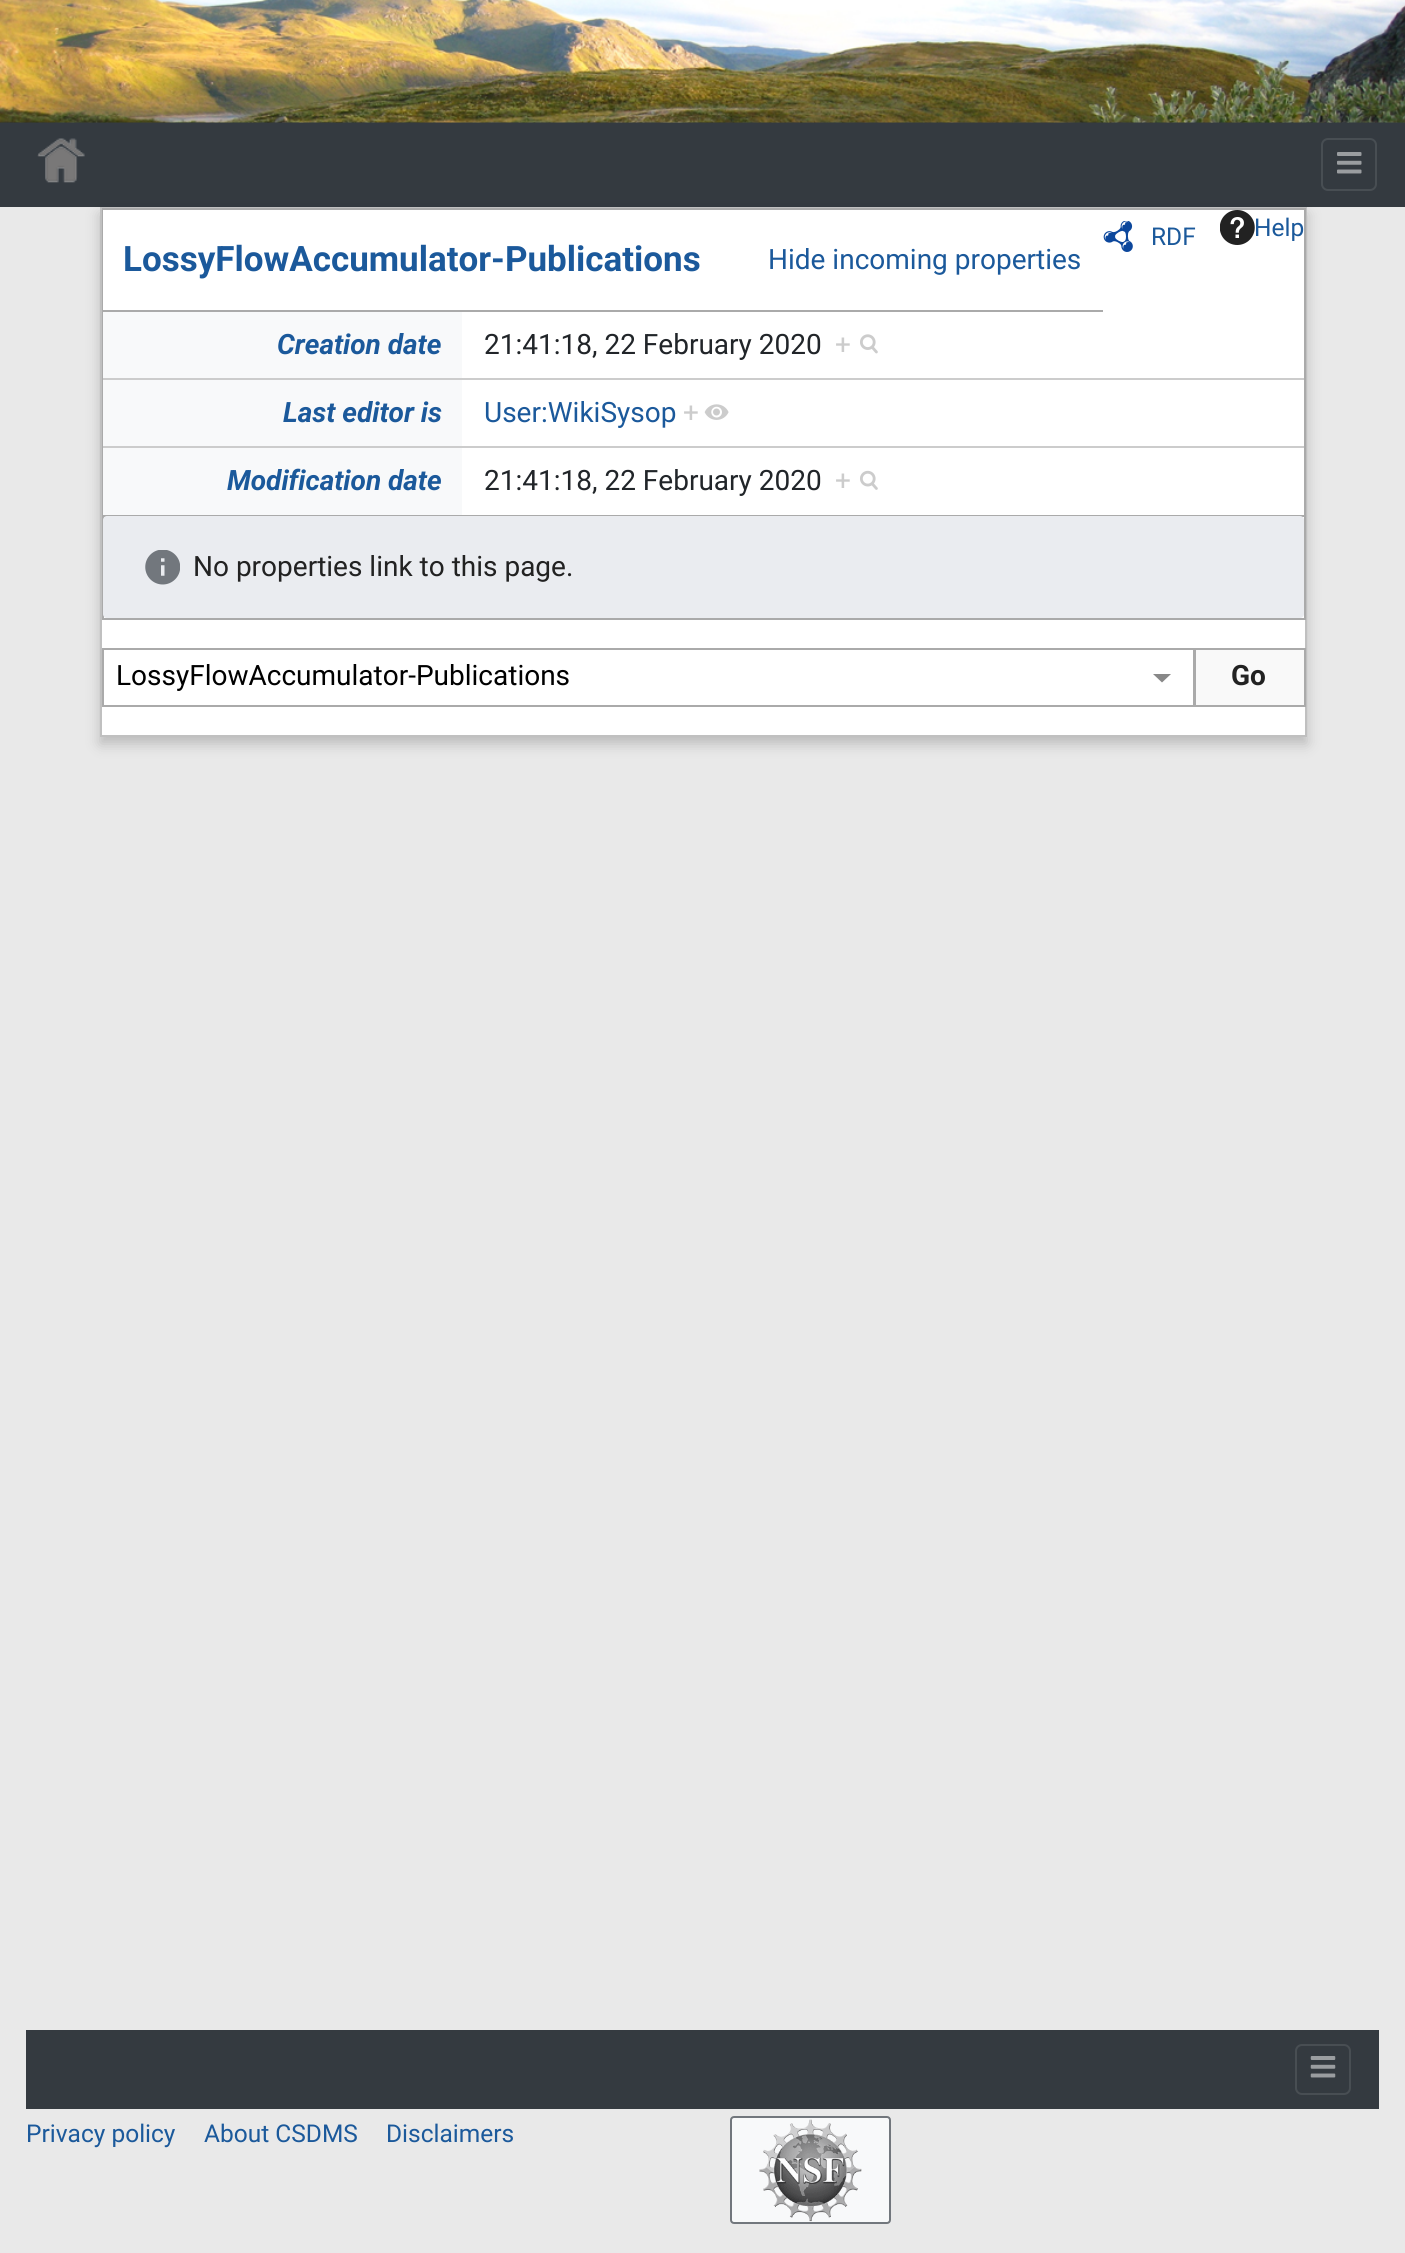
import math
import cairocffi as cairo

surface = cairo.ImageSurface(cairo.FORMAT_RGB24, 1405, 2253)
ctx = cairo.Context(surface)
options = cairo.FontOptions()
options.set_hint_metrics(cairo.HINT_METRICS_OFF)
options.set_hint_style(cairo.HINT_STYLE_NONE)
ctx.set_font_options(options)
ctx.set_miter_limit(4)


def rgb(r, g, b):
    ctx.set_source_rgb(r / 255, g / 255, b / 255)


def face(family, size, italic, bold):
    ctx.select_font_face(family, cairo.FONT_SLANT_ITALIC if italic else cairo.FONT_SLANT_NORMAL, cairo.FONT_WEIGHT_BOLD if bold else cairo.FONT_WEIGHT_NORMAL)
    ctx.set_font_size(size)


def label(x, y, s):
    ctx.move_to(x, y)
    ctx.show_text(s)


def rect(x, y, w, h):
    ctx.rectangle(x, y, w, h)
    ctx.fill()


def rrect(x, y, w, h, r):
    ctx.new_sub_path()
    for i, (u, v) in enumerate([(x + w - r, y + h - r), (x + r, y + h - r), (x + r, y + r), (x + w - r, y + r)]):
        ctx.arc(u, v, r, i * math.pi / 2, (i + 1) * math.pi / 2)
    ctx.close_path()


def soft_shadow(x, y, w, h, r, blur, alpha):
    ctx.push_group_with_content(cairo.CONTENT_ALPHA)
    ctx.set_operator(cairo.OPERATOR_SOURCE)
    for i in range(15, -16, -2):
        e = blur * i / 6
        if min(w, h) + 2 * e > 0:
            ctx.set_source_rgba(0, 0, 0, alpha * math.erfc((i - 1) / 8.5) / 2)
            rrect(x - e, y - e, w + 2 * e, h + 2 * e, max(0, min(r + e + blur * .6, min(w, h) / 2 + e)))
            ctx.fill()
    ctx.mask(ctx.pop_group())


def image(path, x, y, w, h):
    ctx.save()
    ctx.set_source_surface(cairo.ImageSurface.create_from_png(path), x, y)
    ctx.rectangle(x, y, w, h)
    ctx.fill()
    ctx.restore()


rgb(233, 233, 233)
ctx.paint()
rgb(52, 58, 64)
rect(0, 122, 1405, 85)
image('image0.png', 0, 0, 1405, 123)
image('image1.png', 37, 138, 48, 45)
rrect(1322, 139, 54, 51, 6)
rgb(72, 78, 83)
ctx.stroke()
image('image2.png', 1337, 152, 25, 22)
rgb(0, 0, 0)
soft_shadow(100, 214, 1207, 530, 0, 7, 0.2)
rgb(255, 255, 255)
rect(102, 210, 1203, 525)
ctx.rectangle(101, 208, 1205, 528)
rgb(192, 192, 192)
ctx.stroke()
ctx.rectangle(103, 209, 1202, 410)
rgb(170, 170, 170)
ctx.stroke()
image('image3.png', 1103, 221, 30, 31)
face('Roboto', 24.5, 0, 0)
rgb(27, 89, 155)
label(1151, 245, 'RDF')
image('image4.png', 1220, 210, 35, 35)
label(1254, 236, 'Help')
rgb(255, 255, 255)
rect(103, 210, 1, 100)
rgb(170, 170, 170)
rect(103, 310, 1000, 2)
face('Roboto', 35, 0, 1)
rgb(27, 89, 155)
label(123, 271, 'LossyFlowAccumulator-Publications')
face('Roboto', 28, 0, 0)
label(768, 269, 'Hide incoming properties')
rgb(170, 170, 170)
rect(103, 515, 1201, 2)
rgb(248, 249, 250)
rect(103, 312, 359, 66)
face('Roboto', 28, 1, 1)
rgb(27, 89, 155)
label(277, 354, 'Creation date')
face('Roboto', 28, 0, 0)
rgb(33, 37, 41)
label(484, 354, '21:41:18, 22 February 2020')
rgb(204, 204, 204)
label(835, 354, '+')
image('image5.png', 860, 334, 18, 20)
rect(103, 378, 1201, 2)
rgb(248, 249, 250)
rect(103, 380, 359, 66)
face('Roboto', 28, 1, 1)
rgb(27, 89, 155)
label(283, 422, 'Last editor is')
face('Roboto', 28, 0, 0)
label(484, 422, 'User:WikiSysop')
rgb(204, 204, 204)
label(683, 422, '+')
image('image6.png', 704, 404, 25, 16)
rect(103, 446, 1201, 2)
rgb(248, 249, 250)
rect(103, 448, 359, 67)
face('Roboto', 28, 1, 1)
rgb(27, 89, 155)
label(227, 490, 'Modification date')
face('Roboto', 28, 0, 0)
rgb(33, 37, 41)
label(484, 490, '21:41:18, 22 February 2020')
rgb(204, 204, 204)
label(835, 490, '+')
image('image7.png', 860, 470, 18, 20)
rgb(234, 236, 240)
rrect(103, 516, 1201, 102, 4)
ctx.fill()
image('image8.png', 145, 550, 35, 35)
rgb(34, 34, 34)
label(193, 576, 'No properties link to this page.')
rgb(136, 136, 136)
ctx.new_path()
ctx.move_to(1153, 674)
ctx.line_to(1162, 682.5)
ctx.line_to(1171, 674)
ctx.close_path()
ctx.fill()
ctx.rectangle(103, 649, 1091, 57)
rgb(170, 170, 170)
ctx.stroke()
rgb(0, 0, 0)
label(116, 685, 'LossyFlowAccumulator-Publications')
rgb(249, 249, 249)
ctx.rectangle(1195, 649, 110, 57)
ctx.fill_preserve()
rgb(170, 170, 170)
ctx.stroke()
face('Roboto', 28, 0, 1)
rgb(34, 34, 34)
label(1231, 685, 'Go')
rgb(52, 58, 64)
rect(26, 2030, 1353, 79)
rrect(1296, 2045, 54, 49, 6)
rgb(72, 78, 83)
ctx.stroke()
image('image9.png', 1310, 2056, 26, 22)
face('Roboto', 24.5, 0, 0)
rgb(27, 89, 155)
label(26, 2142, 'Privacy policy')
label(204, 2142, 'About CSDMS')
label(386, 2142, 'Disclaimers')
rgb(248, 249, 250)
rrect(731, 2117, 159, 106, 3)
ctx.fill_preserve()
rgb(114, 119, 125)
ctx.stroke()
image('image10.png', 759, 2119, 103, 103)
surface.write_to_png('render.png')
